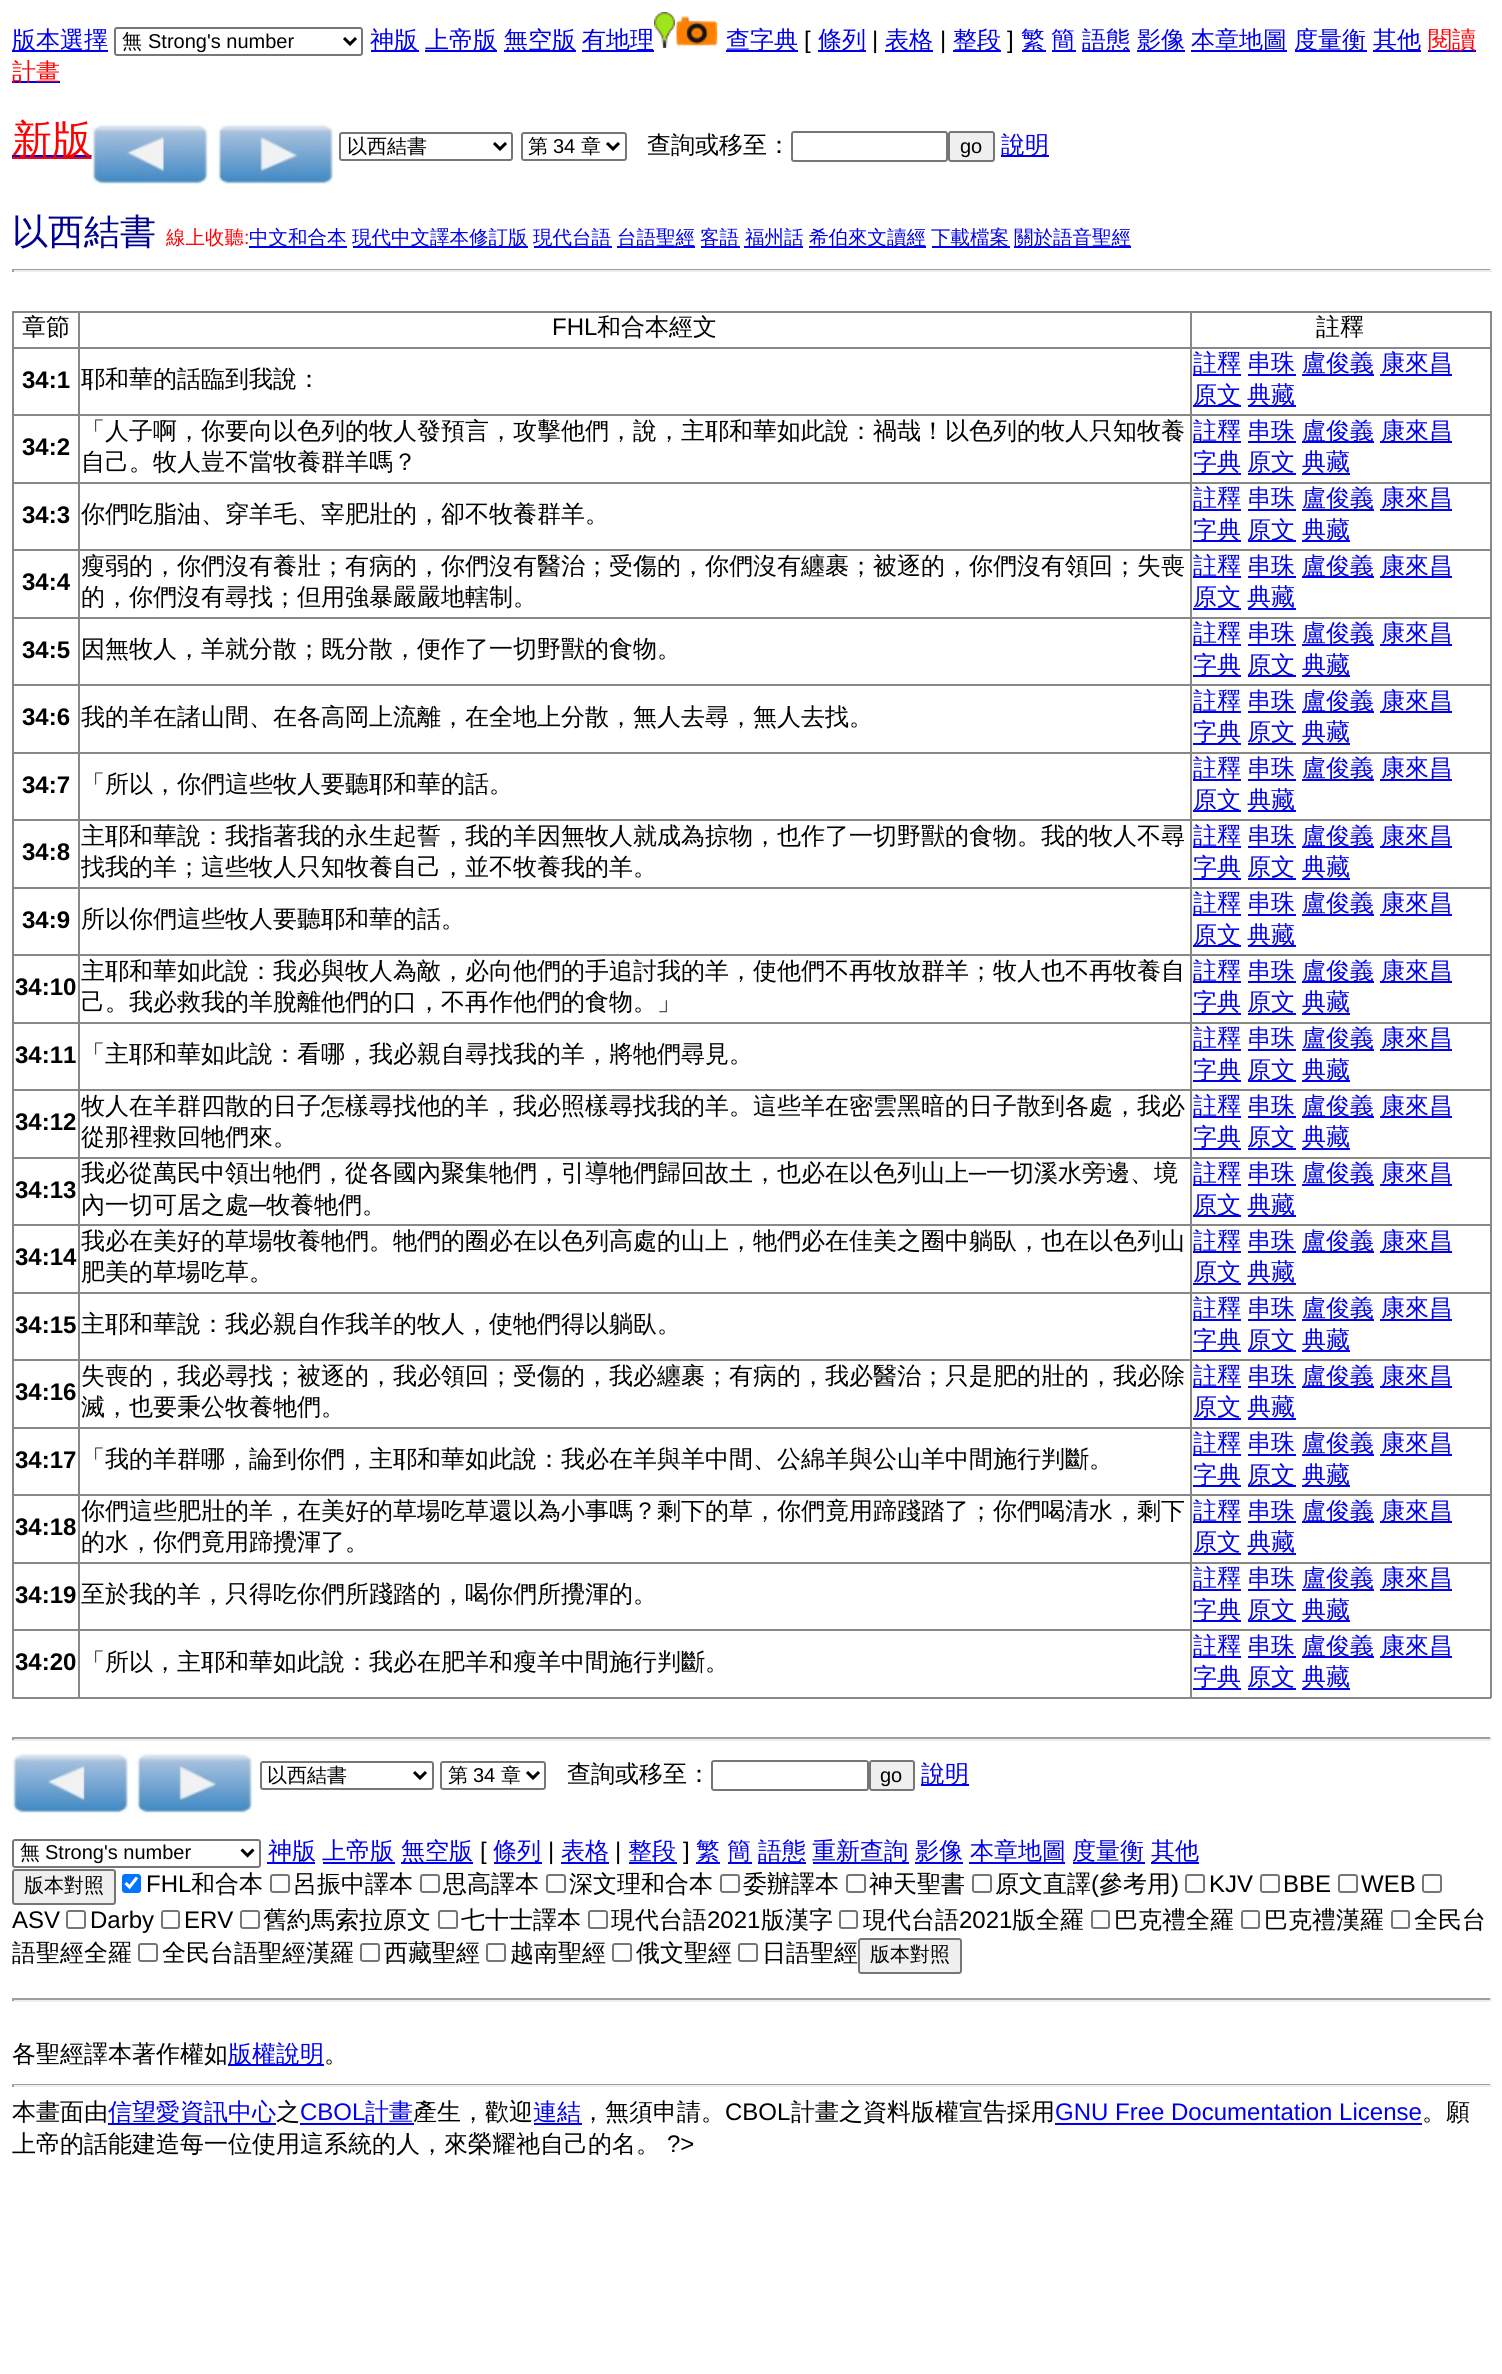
import math
import cairocffi as cairo

surface = cairo.ImageSurface(cairo.FORMAT_RGB24, 1502, 2374)
ctx = cairo.Context(surface)
options = cairo.FontOptions()
options.set_hint_metrics(cairo.HINT_METRICS_OFF)
options.set_hint_style(cairo.HINT_STYLE_NONE)
ctx.set_font_options(options)
ctx.set_miter_limit(4)


def rgb(r, g, b):
    ctx.set_source_rgb(r / 255, g / 255, b / 255)


def face(family, size, italic, bold):
    ctx.select_font_face(family, cairo.FONT_SLANT_ITALIC if italic else cairo.FONT_SLANT_NORMAL, cairo.FONT_WEIGHT_BOLD if bold else cairo.FONT_WEIGHT_NORMAL)
    ctx.set_font_size(size)


def label(x, y, s):
    ctx.move_to(x, y)
    ctx.show_text(s)


def rect(x, y, w, h):
    ctx.rectangle(x, y, w, h)
    ctx.fill()


def rrect(x, y, w, h, r):
    ctx.new_sub_path()
    for i, (u, v) in enumerate([(x + w - r, y + h - r), (x + r, y + h - r), (x + r, y + r), (x + w - r, y + r)]):
        ctx.arc(u, v, r, i * math.pi / 2, (i + 1) * math.pi / 2)
    ctx.close_path()


def image(path, x, y, w, h):
    ctx.save()
    ctx.set_source_surface(cairo.ImageSurface.create_from_png(path), x, y)
    ctx.rectangle(x, y, w, h)
    ctx.fill()
    ctx.restore()


rgb(255, 255, 255)
ctx.paint()
rgb(0, 0, 238)
rect(12, 50, 96, 2)
face('WenQuanYi Zen Hei Medium', 24, 0, 0)
label(12, 48, '版本選擇')
rrect(115, 28, 247, 27, 2)
rgb(118, 118, 118)
ctx.stroke()
ctx.new_path()
ctx.move_to(344, 38)
ctx.line_to(350, 44)
ctx.line_to(356, 38)
rgb(0, 0, 0)
ctx.set_line_width(3)
ctx.stroke()
face('WenQuanYi Zen Hei Medium', 20, 0, 0)
label(122, 48, '無')
face('Liberation Sans', 20, 0, 0)
label(148, 48, 'Strong\'s number')
rgb(0, 0, 238)
rect(371, 50, 48, 2)
face('WenQuanYi Zen Hei Medium', 24, 0, 0)
label(370, 48, '神版')
rect(425, 50, 72, 2)
label(425, 48, '上帝版')
rect(504, 50, 72, 2)
label(504, 48, '無空版')
rect(582, 50, 72, 2)
label(582, 48, '有地理')
image('image0.png', 654, 12, 21, 36)
image('image1.png', 676, 16, 42, 31)
rect(726, 50, 72, 2)
label(726, 48, '查字典')
face('Liberation Sans', 24, 0, 0)
rgb(0, 0, 0)
label(804, 48, '[')
rgb(0, 0, 238)
rect(818, 50, 48, 2)
face('WenQuanYi Zen Hei Medium', 24, 0, 0)
label(818, 48, '條列')
face('Liberation Sans', 24, 0, 0)
rgb(0, 0, 0)
label(872, 48, '|')
rgb(0, 0, 238)
rect(885, 50, 48, 2)
face('WenQuanYi Zen Hei Medium', 24, 0, 0)
label(885, 48, '表格')
face('Liberation Sans', 24, 0, 0)
rgb(0, 0, 0)
label(940, 48, '|')
rgb(0, 0, 238)
rect(953, 50, 48, 2)
face('WenQuanYi Zen Hei Medium', 24, 0, 0)
label(953, 48, '整段')
face('Liberation Sans', 24, 0, 0)
rgb(0, 0, 0)
label(1007, 48, ']')
rgb(0, 0, 238)
rect(1022, 50, 24, 2)
face('WenQuanYi Zen Hei Medium', 24, 0, 0)
label(1021, 48, '繁')
rect(1052, 50, 24, 2)
label(1051, 48, '簡')
rect(1082, 50, 48, 2)
label(1082, 48, '語態')
rect(1137, 50, 48, 2)
label(1137, 48, '影像')
rect(1191, 50, 96, 2)
label(1191, 48, '本章地圖')
rect(1295, 50, 72, 2)
label(1294, 48, '度量衡')
rect(1373, 50, 48, 2)
label(1373, 48, '其他')
rect(1428, 50, 48, 2)
rgb(255, 0, 0)
label(1428, 48, '閱讀')
rgb(0, 0, 238)
rect(12, 81, 48, 2)
rgb(255, 0, 0)
label(12, 80, '計畫')
rect(12, 157, 80, 2)
rgb(0, 0, 238)
rect(12, 155, 80, 2)
face('WenQuanYi Zen Hei Medium', 40, 0, 0)
rgb(255, 0, 0)
label(12, 153, '新版')
image('image2.png', 91, 124, 118, 61)
image('image3.png', 216, 124, 117, 61)
rrect(340, 133, 172, 27, 2)
rgb(118, 118, 118)
ctx.set_line_width(2)
ctx.stroke()
ctx.new_path()
ctx.move_to(494, 143)
ctx.line_to(500, 149)
ctx.line_to(506, 143)
rgb(0, 0, 0)
ctx.set_line_width(3)
ctx.stroke()
face('WenQuanYi Zen Hei Medium', 20, 0, 0)
label(347, 153, '以西結書')
rrect(522, 133, 104, 27, 2)
rgb(118, 118, 118)
ctx.set_line_width(2)
ctx.stroke()
ctx.new_path()
ctx.move_to(607, 143)
ctx.line_to(613, 149)
ctx.line_to(619, 143)
rgb(0, 0, 0)
ctx.set_line_width(3)
ctx.stroke()
label(528, 153, '第')
face('Liberation Sans', 20, 0, 0)
label(553, 153, '34')
face('WenQuanYi Zen Hei Medium', 20, 0, 0)
label(581, 153, '章')
face('WenQuanYi Zen Hei Medium', 24, 0, 0)
label(647, 153, '查詢或移至：')
rrect(792, 132, 155, 29, 2)
rgb(118, 118, 118)
ctx.set_line_width(2)
ctx.stroke()
rgb(239, 239, 239)
rrect(949, 132, 45, 29, 2)
ctx.fill_preserve()
rgb(118, 118, 118)
ctx.stroke()
face('Liberation Sans', 20, 0, 0)
rgb(0, 0, 0)
label(960, 153, 'go')
rgb(0, 0, 238)
rect(1001, 155, 48, 2)
face('WenQuanYi Zen Hei Medium', 24, 0, 0)
label(1001, 153, '說明')
face('WenQuanYi Zen Hei Medium', 36, 0, 0)
rgb(0, 0, 144)
label(12, 244, '以西結書')
face('WenQuanYi Zen Hei Medium', 19.5, 0, 0)
rgb(255, 0, 0)
label(166, 244, '線上收聽')
face('Liberation Sans', 19.5, 0, 0)
label(244, 244, ':')
rgb(0, 0, 238)
rect(249, 246, 98, 2)
face('WenQuanYi Zen Hei Medium', 19.5, 0, 0)
label(249, 244, '中文和合本')
rect(353, 246, 175, 2)
label(352, 244, '現代中文譯本修訂版')
rect(534, 246, 78, 2)
label(533, 244, '現代台語')
rect(617, 246, 78, 2)
label(617, 244, '台語聖經')
rect(701, 246, 39, 2)
label(700, 244, '客語')
rect(744, 246, 59, 2)
label(745, 244, '福州話')
rect(809, 246, 117, 2)
label(809, 244, '希伯來文讀經')
rect(932, 246, 78, 2)
label(931, 244, '下載檔案')
rect(1014, 246, 117, 2)
label(1014, 244, '關於語音聖經')
rgb(159, 159, 159)
rect(12, 269, 1479, 1)
rgb(238, 238, 238)
rect(1490, 269, 2, 3)
rect(12, 270, 1479, 2)
rgb(159, 159, 159)
rect(12, 269, 2, 3)
rgb(136, 136, 136)
rect(12, 311, 1479, 2)
rect(1490, 311, 2, 1387)
rect(12, 1697, 1479, 2)
rect(12, 311, 2, 1387)
face('WenQuanYi Zen Hei Medium', 24, 0, 0)
rgb(0, 0, 0)
label(22, 335, '章節')
face('Liberation Sans', 24, 0, 0)
label(552, 335, 'FHL')
face('WenQuanYi Zen Hei Medium', 24, 0, 0)
label(597, 335, '和合本經文')
label(1316, 335, '註釋')
rgb(136, 136, 136)
rect(12, 347, 1479, 2)
face('Liberation Sans', 24, 0, 1)
rgb(0, 0, 0)
label(22, 388, '34:1')
face('WenQuanYi Zen Hei Medium', 24, 0, 0)
label(81, 387, '耶和華的話臨到我說：')
rgb(0, 0, 238)
rect(1193, 374, 48, 2)
label(1193, 371, '註釋')
label(1247, 371, '串珠')
rect(1248, 374, 48, 2)
rect(1302, 374, 72, 2)
label(1302, 371, '盧俊義')
label(1381, 371, '康來昌')
rect(1380, 374, 72, 2)
rect(1193, 405, 48, 2)
label(1193, 403, '原文')
rect(1248, 405, 48, 2)
label(1247, 403, '典藏')
rgb(136, 136, 136)
rect(12, 414, 1479, 2)
face('Liberation Sans', 24, 0, 1)
rgb(0, 0, 0)
label(22, 455, '34:2')
face('WenQuanYi Zen Hei Medium', 24, 0, 0)
label(81, 439, '「人子啊，你要向以色列的牧人發預言，攻擊他們，說，主耶和華如此說：禍哉！以色列的牧人只知牧養')
label(81, 470, '自己。牧人豈不當牧養群羊嗎？')
rgb(0, 0, 238)
rect(1193, 441, 48, 2)
label(1193, 439, '註釋')
rect(1248, 441, 48, 2)
label(1247, 439, '串珠')
rect(1302, 441, 72, 2)
label(1302, 439, '盧俊義')
rect(1380, 441, 72, 2)
label(1381, 439, '康來昌')
rect(1193, 473, 48, 2)
label(1193, 470, '字典')
rect(1248, 473, 48, 2)
label(1247, 470, '原文')
rect(1302, 473, 48, 2)
label(1302, 470, '典藏')
rgb(136, 136, 136)
rect(12, 482, 1479, 2)
face('Liberation Sans', 24, 0, 1)
rgb(0, 0, 0)
label(22, 523, '34:3')
face('WenQuanYi Zen Hei Medium', 24, 0, 0)
label(81, 522, '你們吃脂油、穿羊毛、宰肥壯的，卻不牧養群羊。')
rgb(0, 0, 238)
rect(1193, 509, 48, 2)
label(1193, 506, '註釋')
label(1247, 506, '串珠')
rect(1248, 509, 48, 2)
rect(1302, 509, 72, 2)
label(1302, 506, '盧俊義')
label(1381, 506, '康來昌')
rect(1380, 509, 72, 2)
rect(1193, 540, 48, 2)
label(1193, 538, '字典')
rect(1248, 540, 48, 2)
label(1247, 538, '原文')
rect(1302, 540, 48, 2)
label(1302, 538, '典藏')
rgb(136, 136, 136)
rect(12, 549, 1479, 2)
face('Liberation Sans', 24, 0, 1)
rgb(0, 0, 0)
label(22, 590, '34:4')
face('WenQuanYi Zen Hei Medium', 24, 0, 0)
label(81, 574, '瘦弱的，你們沒有養壯；有病的，你們沒有醫治；受傷的，你們沒有纏裹；被逐的，你們沒有領回；失喪')
label(81, 605, '的，你們沒有尋找；但用強暴嚴嚴地轄制。')
rgb(0, 0, 238)
rect(1193, 576, 48, 2)
label(1193, 574, '註釋')
rect(1248, 576, 48, 2)
label(1247, 574, '串珠')
rect(1302, 576, 72, 2)
label(1302, 574, '盧俊義')
rect(1380, 576, 72, 2)
label(1381, 574, '康來昌')
rect(1193, 608, 48, 2)
label(1193, 605, '原文')
rect(1248, 608, 48, 2)
label(1247, 605, '典藏')
rgb(136, 136, 136)
rect(12, 617, 1479, 2)
face('Liberation Sans', 24, 0, 1)
rgb(0, 0, 0)
label(22, 658, '34:5')
face('WenQuanYi Zen Hei Medium', 24, 0, 0)
label(81, 657, '因無牧人，羊就分散；既分散，便作了一切野獸的食物。')
rgb(0, 0, 238)
rect(1193, 644, 48, 2)
label(1193, 641, '註釋')
label(1247, 641, '串珠')
rect(1248, 644, 48, 2)
rect(1302, 644, 72, 2)
label(1302, 641, '盧俊義')
label(1381, 641, '康來昌')
rect(1380, 644, 72, 2)
rect(1193, 675, 48, 2)
label(1193, 673, '字典')
rect(1248, 675, 48, 2)
label(1247, 673, '原文')
rect(1302, 675, 48, 2)
label(1302, 673, '典藏')
rgb(136, 136, 136)
rect(12, 684, 1479, 2)
face('Liberation Sans', 24, 0, 1)
rgb(0, 0, 0)
label(22, 725, '34:6')
face('WenQuanYi Zen Hei Medium', 24, 0, 0)
label(81, 725, '我的羊在諸山間、在各高岡上流離，在全地上分散，無人去尋，無人去找。')
rgb(0, 0, 238)
rect(1193, 711, 48, 2)
label(1193, 709, '註釋')
rect(1248, 711, 48, 2)
label(1247, 709, '串珠')
rect(1302, 711, 72, 2)
label(1302, 709, '盧俊義')
rect(1380, 711, 72, 2)
label(1381, 709, '康來昌')
rect(1193, 743, 48, 2)
label(1193, 740, '字典')
rect(1248, 743, 48, 2)
label(1247, 740, '原文')
rect(1302, 743, 48, 2)
label(1302, 740, '典藏')
rgb(136, 136, 136)
rect(12, 752, 1479, 2)
face('Liberation Sans', 24, 0, 1)
rgb(0, 0, 0)
label(22, 793, '34:7')
face('WenQuanYi Zen Hei Medium', 24, 0, 0)
label(81, 792, '「所以，你們這些牧人要聽耶和華的話。')
rgb(0, 0, 238)
rect(1193, 779, 48, 2)
label(1193, 776, '註釋')
label(1247, 776, '串珠')
rect(1248, 779, 48, 2)
rect(1302, 779, 72, 2)
label(1302, 776, '盧俊義')
label(1381, 776, '康來昌')
rect(1380, 779, 72, 2)
rect(1193, 810, 48, 2)
label(1193, 808, '原文')
rect(1248, 810, 48, 2)
label(1247, 808, '典藏')
rgb(136, 136, 136)
rect(12, 819, 1479, 2)
face('Liberation Sans', 24, 0, 1)
rgb(0, 0, 0)
label(22, 860, '34:8')
face('WenQuanYi Zen Hei Medium', 24, 0, 0)
label(81, 844, '主耶和華說：我指著我的永生起誓，我的羊因無牧人就成為掠物，也作了一切野獸的食物。我的牧人不尋')
label(81, 875, '找我的羊；這些牧人只知牧養自己，並不牧養我的羊。')
rgb(0, 0, 238)
rect(1193, 846, 48, 2)
label(1193, 844, '註釋')
rect(1248, 846, 48, 2)
label(1247, 844, '串珠')
rect(1302, 846, 72, 2)
label(1302, 844, '盧俊義')
rect(1380, 846, 72, 2)
label(1381, 844, '康來昌')
rect(1193, 878, 48, 2)
label(1193, 875, '字典')
rect(1248, 878, 48, 2)
label(1247, 875, '原文')
rect(1302, 878, 48, 2)
label(1302, 875, '典藏')
rgb(136, 136, 136)
rect(12, 887, 1479, 2)
face('Liberation Sans', 24, 0, 1)
rgb(0, 0, 0)
label(22, 928, '34:9')
face('WenQuanYi Zen Hei Medium', 24, 0, 0)
label(81, 927, '所以你們這些牧人要聽耶和華的話。')
rgb(0, 0, 238)
rect(1193, 914, 48, 2)
label(1193, 911, '註釋')
label(1247, 911, '串珠')
rect(1248, 914, 48, 2)
rect(1302, 914, 72, 2)
label(1302, 911, '盧俊義')
label(1381, 911, '康來昌')
rect(1380, 914, 72, 2)
rect(1193, 945, 48, 2)
label(1193, 943, '原文')
rect(1248, 945, 48, 2)
label(1247, 943, '典藏')
rgb(136, 136, 136)
rect(12, 954, 1479, 2)
face('Liberation Sans', 24, 0, 1)
rgb(0, 0, 0)
label(15, 995, '34:10')
face('WenQuanYi Zen Hei Medium', 24, 0, 0)
label(81, 979, '主耶和華如此說：我必與牧人為敵，必向他們的手追討我的羊，使他們不再牧放群羊；牧人也不再牧養自')
label(81, 1010, '己。我必救我的羊脫離他們的口，不再作他們的食物。」')
rgb(0, 0, 238)
rect(1193, 981, 48, 2)
label(1193, 979, '註釋')
rect(1248, 981, 48, 2)
label(1247, 979, '串珠')
rect(1302, 981, 72, 2)
label(1302, 979, '盧俊義')
rect(1380, 981, 72, 2)
label(1381, 979, '康來昌')
rect(1193, 1013, 48, 2)
label(1193, 1010, '字典')
rect(1248, 1013, 48, 2)
label(1247, 1010, '原文')
rect(1302, 1013, 48, 2)
label(1302, 1010, '典藏')
rgb(136, 136, 136)
rect(12, 1022, 1479, 2)
face('Liberation Sans', 24, 0, 1)
rgb(0, 0, 0)
label(15, 1063, '34:11')
face('WenQuanYi Zen Hei Medium', 24, 0, 0)
label(81, 1062, '「主耶和華如此說：看哪，我必親自尋找我的羊，將牠們尋見。')
rgb(0, 0, 238)
rect(1193, 1049, 48, 2)
label(1193, 1046, '註釋')
label(1247, 1046, '串珠')
rect(1248, 1049, 48, 2)
rect(1302, 1049, 72, 2)
label(1302, 1046, '盧俊義')
label(1381, 1046, '康來昌')
rect(1380, 1049, 72, 2)
rect(1193, 1080, 48, 2)
label(1193, 1078, '字典')
rect(1248, 1080, 48, 2)
label(1247, 1078, '原文')
rect(1302, 1080, 48, 2)
label(1302, 1078, '典藏')
rgb(136, 136, 136)
rect(12, 1089, 1479, 2)
face('Liberation Sans', 24, 0, 1)
rgb(0, 0, 0)
label(15, 1130, '34:12')
face('WenQuanYi Zen Hei Medium', 24, 0, 0)
label(81, 1114, '牧人在羊群四散的日子怎樣尋找他的羊，我必照樣尋找我的羊。這些羊在密雲黑暗的日子散到各處，我必')
label(81, 1145, '從那裡救回牠們來。')
rgb(0, 0, 238)
rect(1193, 1116, 48, 2)
label(1193, 1114, '註釋')
rect(1248, 1116, 48, 2)
label(1247, 1114, '串珠')
rect(1302, 1116, 72, 2)
label(1302, 1114, '盧俊義')
rect(1380, 1116, 72, 2)
label(1381, 1114, '康來昌')
rect(1193, 1148, 48, 2)
label(1193, 1145, '字典')
rect(1248, 1148, 48, 2)
label(1247, 1145, '原文')
rect(1302, 1148, 48, 2)
label(1302, 1145, '典藏')
rgb(136, 136, 136)
rect(12, 1157, 1479, 2)
face('Liberation Sans', 24, 0, 1)
rgb(0, 0, 0)
label(15, 1198, '34:13')
face('WenQuanYi Zen Hei Medium', 24, 0, 0)
label(81, 1181, '我必從萬民中領出牠們，從各國內聚集牠們，引導牠們歸回故土，也必在以色列山上')
face('Liberation Sans', 24, 0, 0)
label(969, 1181, '─')
face('WenQuanYi Zen Hei Medium', 24, 0, 0)
label(986, 1181, '一切溪水旁邊、境')
label(81, 1213, '內一切可居之處')
face('Liberation Sans', 24, 0, 0)
label(249, 1213, '─')
face('WenQuanYi Zen Hei Medium', 24, 0, 0)
label(266, 1213, '牧養牠們。')
rgb(0, 0, 238)
rect(1193, 1184, 48, 2)
label(1193, 1181, '註釋')
label(1247, 1181, '串珠')
rect(1248, 1184, 48, 2)
rect(1302, 1184, 72, 2)
label(1302, 1181, '盧俊義')
label(1381, 1181, '康來昌')
rect(1380, 1184, 72, 2)
rect(1193, 1215, 48, 2)
label(1193, 1213, '原文')
rect(1248, 1215, 48, 2)
label(1247, 1213, '典藏')
rgb(136, 136, 136)
rect(12, 1224, 1479, 2)
face('Liberation Sans', 24, 0, 1)
rgb(0, 0, 0)
label(15, 1265, '34:14')
face('WenQuanYi Zen Hei Medium', 24, 0, 0)
label(81, 1249, '我必在美好的草場牧養牠們。牠們的圈必在以色列高處的山上，牠們必在佳美之圈中躺臥，也在以色列山')
label(81, 1280, '肥美的草場吃草。')
rgb(0, 0, 238)
rect(1193, 1251, 48, 2)
label(1193, 1249, '註釋')
rect(1248, 1251, 48, 2)
label(1247, 1249, '串珠')
rect(1302, 1251, 72, 2)
label(1302, 1249, '盧俊義')
rect(1380, 1251, 72, 2)
label(1381, 1249, '康來昌')
rect(1193, 1283, 48, 2)
label(1193, 1280, '原文')
rect(1248, 1283, 48, 2)
label(1247, 1280, '典藏')
rgb(136, 136, 136)
rect(12, 1292, 1479, 2)
face('Liberation Sans', 24, 0, 1)
rgb(0, 0, 0)
label(15, 1333, '34:15')
face('WenQuanYi Zen Hei Medium', 24, 0, 0)
label(81, 1332, '主耶和華說：我必親自作我羊的牧人，使牠們得以躺臥。')
rgb(0, 0, 238)
rect(1193, 1319, 48, 2)
label(1193, 1316, '註釋')
label(1247, 1316, '串珠')
rect(1248, 1319, 48, 2)
rect(1302, 1319, 72, 2)
label(1302, 1316, '盧俊義')
label(1381, 1316, '康來昌')
rect(1380, 1319, 72, 2)
rect(1193, 1350, 48, 2)
label(1193, 1348, '字典')
rect(1248, 1350, 48, 2)
label(1247, 1348, '原文')
rect(1302, 1350, 48, 2)
label(1302, 1348, '典藏')
rgb(136, 136, 136)
rect(12, 1359, 1479, 2)
face('Liberation Sans', 24, 0, 1)
rgb(0, 0, 0)
label(15, 1400, '34:16')
face('WenQuanYi Zen Hei Medium', 24, 0, 0)
label(81, 1384, '失喪的，我必尋找；被逐的，我必領回；受傷的，我必纏裹；有病的，我必醫治；只是肥的壯的，我必除')
label(81, 1415, '滅，也要秉公牧養牠們。')
rgb(0, 0, 238)
rect(1193, 1386, 48, 2)
label(1193, 1384, '註釋')
rect(1248, 1386, 48, 2)
label(1247, 1384, '串珠')
rect(1302, 1386, 72, 2)
label(1302, 1384, '盧俊義')
rect(1380, 1386, 72, 2)
label(1381, 1384, '康來昌')
rect(1193, 1418, 48, 2)
label(1193, 1415, '原文')
rect(1248, 1418, 48, 2)
label(1247, 1415, '典藏')
rgb(136, 136, 136)
rect(12, 1427, 1479, 2)
face('Liberation Sans', 24, 0, 1)
rgb(0, 0, 0)
label(15, 1468, '34:17')
face('WenQuanYi Zen Hei Medium', 24, 0, 0)
label(81, 1467, '「我的羊群哪，論到你們，主耶和華如此說：我必在羊與羊中間、公綿羊與公山羊中間施行判斷。')
rgb(0, 0, 238)
rect(1193, 1454, 48, 2)
label(1193, 1451, '註釋')
label(1247, 1451, '串珠')
rect(1248, 1454, 48, 2)
rect(1302, 1454, 72, 2)
label(1302, 1451, '盧俊義')
label(1381, 1451, '康來昌')
rect(1380, 1454, 72, 2)
rect(1193, 1485, 48, 2)
label(1193, 1483, '字典')
rect(1248, 1485, 48, 2)
label(1247, 1483, '原文')
rect(1302, 1485, 48, 2)
label(1302, 1483, '典藏')
rgb(136, 136, 136)
rect(12, 1494, 1479, 2)
face('Liberation Sans', 24, 0, 1)
rgb(0, 0, 0)
label(15, 1535, '34:18')
face('WenQuanYi Zen Hei Medium', 24, 0, 0)
label(81, 1519, '你們這些肥壯的羊，在美好的草場吃草還以為小事嗎？剩下的草，你們竟用蹄踐踏了；你們喝清水，剩下')
label(81, 1550, '的水，你們竟用蹄攪渾了。')
rgb(0, 0, 238)
rect(1193, 1521, 48, 2)
label(1193, 1519, '註釋')
rect(1248, 1521, 48, 2)
label(1247, 1519, '串珠')
rect(1302, 1521, 72, 2)
label(1302, 1519, '盧俊義')
rect(1380, 1521, 72, 2)
label(1381, 1519, '康來昌')
rect(1193, 1553, 48, 2)
label(1193, 1550, '原文')
rect(1248, 1553, 48, 2)
label(1247, 1550, '典藏')
rgb(136, 136, 136)
rect(12, 1562, 1479, 2)
face('Liberation Sans', 24, 0, 1)
rgb(0, 0, 0)
label(15, 1603, '34:19')
face('WenQuanYi Zen Hei Medium', 24, 0, 0)
label(81, 1602, '至於我的羊，只得吃你們所踐踏的，喝你們所攪渾的。')
rgb(0, 0, 238)
rect(1193, 1589, 48, 2)
label(1193, 1586, '註釋')
label(1247, 1586, '串珠')
rect(1248, 1589, 48, 2)
rect(1302, 1589, 72, 2)
label(1302, 1586, '盧俊義')
label(1381, 1586, '康來昌')
rect(1380, 1589, 72, 2)
rect(1193, 1620, 48, 2)
label(1193, 1618, '字典')
rect(1248, 1620, 48, 2)
label(1247, 1618, '原文')
rect(1302, 1620, 48, 2)
label(1302, 1618, '典藏')
rgb(136, 136, 136)
rect(12, 1629, 1479, 2)
face('Liberation Sans', 24, 0, 1)
rgb(0, 0, 0)
label(15, 1670, '34:20')
rgb(136, 136, 136)
rect(78, 311, 2, 1387)
face('WenQuanYi Zen Hei Medium', 24, 0, 0)
rgb(0, 0, 0)
label(81, 1670, '「所以，主耶和華如此說：我必在肥羊和瘦羊中間施行判斷。')
rgb(136, 136, 136)
rect(1190, 311, 2, 1387)
rgb(0, 0, 238)
rect(1193, 1656, 48, 2)
label(1193, 1654, '註釋')
rect(1248, 1656, 48, 2)
label(1247, 1654, '串珠')
rect(1302, 1656, 72, 2)
label(1302, 1654, '盧俊義')
rect(1380, 1656, 72, 2)
label(1381, 1654, '康來昌')
rect(1193, 1688, 48, 2)
label(1193, 1685, '字典')
rect(1248, 1688, 48, 2)
label(1247, 1685, '原文')
rect(1302, 1688, 48, 2)
label(1302, 1685, '典藏')
rgb(159, 159, 159)
rect(12, 1737, 1479, 2)
rgb(238, 238, 238)
rect(1490, 1737, 2, 3)
rect(12, 1739, 1479, 2)
rgb(159, 159, 159)
rect(12, 1737, 2, 3)
image('image4.png', 12, 1753, 117, 61)
image('image3.png', 135, 1753, 117, 61)
rrect(261, 1762, 172, 27, 2)
rgb(118, 118, 118)
ctx.stroke()
ctx.new_path()
ctx.move_to(414, 1772)
ctx.line_to(420, 1778)
ctx.line_to(426, 1772)
rgb(0, 0, 0)
ctx.set_line_width(3)
ctx.stroke()
face('WenQuanYi Zen Hei Medium', 20, 0, 0)
label(267, 1782, '以西結書')
rrect(441, 1762, 104, 27, 2)
rgb(118, 118, 118)
ctx.set_line_width(2)
ctx.stroke()
ctx.new_path()
ctx.move_to(527, 1772)
ctx.line_to(533, 1778)
ctx.line_to(539, 1772)
rgb(0, 0, 0)
ctx.set_line_width(3)
ctx.stroke()
label(448, 1782, '第')
face('Liberation Sans', 20, 0, 0)
label(473, 1782, '34')
face('WenQuanYi Zen Hei Medium', 20, 0, 0)
label(501, 1782, '章')
face('WenQuanYi Zen Hei Medium', 24, 0, 0)
label(567, 1782, '查詢或移至：')
rrect(712, 1761, 156, 29, 2)
rgb(118, 118, 118)
ctx.set_line_width(2)
ctx.stroke()
rgb(239, 239, 239)
rrect(870, 1761, 44, 29, 2)
ctx.fill_preserve()
rgb(118, 118, 118)
ctx.stroke()
face('Liberation Sans', 20, 0, 0)
rgb(0, 0, 0)
label(880, 1782, 'go')
rgb(0, 0, 238)
rect(921, 1784, 48, 2)
face('WenQuanYi Zen Hei Medium', 24, 0, 0)
label(921, 1782, '說明')
rrect(13, 1840, 247, 27, 2)
rgb(118, 118, 118)
ctx.stroke()
ctx.new_path()
ctx.move_to(241.5, 1849.5)
ctx.line_to(247.5, 1855.5)
ctx.line_to(253.5, 1849.5)
rgb(0, 0, 0)
ctx.set_line_width(3)
ctx.stroke()
face('WenQuanYi Zen Hei Medium', 20, 0, 0)
label(20, 1859, '無')
face('Liberation Sans', 20, 0, 0)
label(45, 1859, 'Strong\'s number')
rgb(0, 0, 238)
rect(267, 1862, 48, 2)
face('WenQuanYi Zen Hei Medium', 24, 0, 0)
label(268, 1859, '神版')
label(322, 1859, '上帝版')
rect(323, 1862, 72, 2)
rect(401, 1862, 72, 2)
label(401, 1859, '無空版')
face('Liberation Sans', 24, 0, 0)
rgb(0, 0, 0)
label(480, 1859, '[')
rgb(0, 0, 238)
rect(494, 1862, 48, 2)
face('WenQuanYi Zen Hei Medium', 24, 0, 0)
label(493, 1859, '條列')
face('Liberation Sans', 24, 0, 0)
rgb(0, 0, 0)
label(548, 1859, '|')
rgb(0, 0, 238)
rect(561, 1862, 48, 2)
face('WenQuanYi Zen Hei Medium', 24, 0, 0)
label(561, 1859, '表格')
face('Liberation Sans', 24, 0, 0)
rgb(0, 0, 0)
label(615, 1859, '|')
face('WenQuanYi Zen Hei Medium', 24, 0, 0)
rgb(0, 0, 238)
label(628, 1859, '整段')
rect(629, 1862, 48, 2)
face('Liberation Sans', 24, 0, 0)
rgb(0, 0, 0)
label(683, 1859, ']')
rgb(0, 0, 238)
rect(696, 1862, 24, 2)
face('WenQuanYi Zen Hei Medium', 24, 0, 0)
label(696, 1859, '繁')
rect(728, 1862, 24, 2)
label(727, 1859, '簡')
rect(758, 1862, 48, 2)
label(758, 1859, '語態')
rect(813, 1862, 96, 2)
label(812, 1859, '重新查詢')
rect(915, 1862, 48, 2)
label(915, 1859, '影像')
label(970, 1859, '本章地圖')
rect(969, 1862, 96, 2)
rect(1073, 1862, 72, 2)
label(1072, 1859, '度量衡')
rect(1151, 1862, 48, 2)
label(1151, 1859, '其他')
rgb(239, 239, 239)
rrect(13, 1870, 102, 34, 2)
ctx.fill_preserve()
rgb(118, 118, 118)
ctx.set_line_width(2)
ctx.stroke()
face('WenQuanYi Zen Hei Medium', 20, 0, 0)
rgb(0, 0, 0)
label(24, 1892, '版本對照')
rgb(0, 117, 255)
rrect(122, 1874, 19, 19, 3)
ctx.fill()
ctx.new_path()
ctx.move_to(125.5, 1883)
ctx.line_to(129.5, 1887)
ctx.line_to(137, 1877.5)
rgb(255, 255, 255)
ctx.set_line_width(3.1)
ctx.stroke()
face('Liberation Sans', 24, 0, 0)
rgb(0, 0, 0)
label(146, 1892, 'FHL')
face('WenQuanYi Zen Hei Medium', 24, 0, 0)
label(191, 1892, '和合本')
rrect(271, 1875, 18, 17, 2)
rgb(118, 118, 118)
ctx.set_line_width(2)
ctx.stroke()
rgb(0, 0, 0)
label(293, 1892, '呂振中譯本')
rrect(421, 1875, 18, 17, 2)
rgb(118, 118, 118)
ctx.stroke()
rgb(0, 0, 0)
label(443, 1892, '思高譯本')
rrect(547, 1875, 18, 17, 2)
rgb(118, 118, 118)
ctx.stroke()
rgb(0, 0, 0)
label(569, 1892, '深文理和合本')
rrect(721, 1875, 18, 17, 2)
rgb(118, 118, 118)
ctx.stroke()
rgb(0, 0, 0)
label(743, 1892, '委辦譯本')
rrect(847, 1875, 18, 17, 2)
rgb(118, 118, 118)
ctx.stroke()
rgb(0, 0, 0)
label(869, 1892, '神天聖書')
rrect(973, 1875, 18, 17, 2)
rgb(118, 118, 118)
ctx.stroke()
rgb(0, 0, 0)
label(995, 1892, '原文直譯')
face('Liberation Sans', 24, 0, 0)
label(1091, 1892, '(')
face('WenQuanYi Zen Hei Medium', 24, 0, 0)
label(1099, 1892, '參考用')
face('Liberation Sans', 24, 0, 0)
label(1171, 1892, ')')
rrect(1186, 1875, 18, 17, 2)
rgb(118, 118, 118)
ctx.stroke()
rgb(0, 0, 0)
label(1209, 1892, 'KJV')
rrect(1261, 1875, 18, 17, 2)
rgb(118, 118, 118)
ctx.stroke()
rgb(0, 0, 0)
label(1283, 1892, 'BBE')
rrect(1339, 1875, 18, 17, 2)
rgb(118, 118, 118)
ctx.stroke()
rgb(0, 0, 0)
label(1361, 1892, 'WEB')
rrect(1423, 1875, 18, 17, 2)
rgb(118, 118, 118)
ctx.stroke()
rgb(0, 0, 0)
label(12, 1928, 'ASV')
rrect(67, 1911, 18, 17, 2)
rgb(118, 118, 118)
ctx.stroke()
rgb(0, 0, 0)
label(90, 1928, 'Darby')
rrect(162, 1911, 17, 17, 2)
rgb(118, 118, 118)
ctx.stroke()
rgb(0, 0, 0)
label(184, 1928, 'ERV')
rrect(241, 1911, 18, 17, 2)
rgb(118, 118, 118)
ctx.stroke()
face('WenQuanYi Zen Hei Medium', 24, 0, 0)
rgb(0, 0, 0)
label(263, 1928, '舊約馬索拉原文')
rrect(439, 1911, 18, 17, 2)
rgb(118, 118, 118)
ctx.stroke()
rgb(0, 0, 0)
label(461, 1928, '七十士譯本')
rrect(589, 1911, 18, 17, 2)
rgb(118, 118, 118)
ctx.stroke()
rgb(0, 0, 0)
label(611, 1928, '現代台語')
face('Liberation Sans', 24, 0, 0)
label(707, 1928, '2021')
face('WenQuanYi Zen Hei Medium', 24, 0, 0)
label(761, 1928, '版漢字')
rrect(840, 1911, 17, 17, 2)
rgb(118, 118, 118)
ctx.stroke()
rgb(0, 0, 0)
label(863, 1928, '現代台語')
face('Liberation Sans', 24, 0, 0)
label(959, 1928, '2021')
face('WenQuanYi Zen Hei Medium', 24, 0, 0)
label(1012, 1928, '版全羅')
rrect(1092, 1911, 17, 17, 2)
rgb(118, 118, 118)
ctx.stroke()
rgb(0, 0, 0)
label(1114, 1928, '巴克禮全羅')
rrect(1242, 1911, 17, 17, 2)
rgb(118, 118, 118)
ctx.stroke()
rgb(0, 0, 0)
label(1264, 1928, '巴克禮漢羅')
rrect(1392, 1911, 17, 17, 2)
rgb(118, 118, 118)
ctx.stroke()
rgb(0, 0, 0)
label(1414, 1928, '全民台')
label(12, 1961, '語聖經全羅')
rrect(139, 1944, 18, 17, 2)
rgb(118, 118, 118)
ctx.stroke()
rgb(0, 0, 0)
label(162, 1961, '全民台語聖經漢羅')
rrect(361, 1944, 18, 17, 2)
rgb(118, 118, 118)
ctx.stroke()
rgb(0, 0, 0)
label(384, 1961, '西藏聖經')
rrect(487, 1944, 18, 17, 2)
rgb(118, 118, 118)
ctx.stroke()
rgb(0, 0, 0)
label(510, 1961, '越南聖經')
rrect(613, 1944, 18, 17, 2)
rgb(118, 118, 118)
ctx.stroke()
rgb(0, 0, 0)
label(636, 1961, '俄文聖經')
rrect(739, 1944, 18, 17, 2)
rgb(118, 118, 118)
ctx.stroke()
rgb(0, 0, 0)
label(762, 1961, '日語聖經')
rgb(239, 239, 239)
rrect(859, 1939, 102, 34, 2)
ctx.fill_preserve()
rgb(118, 118, 118)
ctx.stroke()
face('WenQuanYi Zen Hei Medium', 20, 0, 0)
rgb(0, 0, 0)
label(870, 1961, '版本對照')
rgb(159, 159, 159)
rect(12, 1998, 1479, 2)
rgb(238, 238, 238)
rect(1490, 1998, 2, 3)
rect(12, 2000, 1479, 2)
rgb(159, 159, 159)
rect(12, 1998, 2, 3)
face('WenQuanYi Zen Hei Medium', 24, 0, 0)
rgb(0, 0, 0)
label(12, 2062, '各聖經譯本著作權如')
rgb(0, 0, 238)
rect(228, 2064, 96, 2)
label(228, 2062, '版權說明')
rgb(0, 0, 0)
label(324, 2062, '。')
rgb(159, 159, 159)
rect(12, 2084, 1479, 1)
rgb(238, 238, 238)
rect(1490, 2084, 2, 3)
rect(12, 2085, 1479, 2)
rgb(159, 159, 159)
rect(12, 2084, 2, 3)
rgb(0, 0, 0)
label(12, 2120, '本畫面由')
rgb(0, 0, 238)
rect(108, 2123, 168, 2)
label(108, 2120, '信望愛資訊中心')
rgb(0, 0, 0)
label(276, 2120, '之')
face('Liberation Sans', 24, 0, 0)
rgb(0, 0, 238)
label(300, 2120, 'CBOL')
rect(300, 2123, 114, 2)
face('WenQuanYi Zen Hei Medium', 24, 0, 0)
label(365, 2120, '計畫')
rgb(0, 0, 0)
label(413, 2120, '產生，歡迎')
rgb(0, 0, 238)
label(533, 2120, '連結')
rect(534, 2123, 48, 2)
rgb(0, 0, 0)
label(581, 2120, '，無須申請。')
face('Liberation Sans', 24, 0, 0)
label(725, 2120, 'CBOL')
face('WenQuanYi Zen Hei Medium', 24, 0, 0)
label(791, 2120, '計畫之資料版權宣告採用')
face('Liberation Sans', 24, 0, 0)
rgb(0, 0, 238)
label(1055, 2120, 'GNU Free Documentation License')
rect(1055, 2123, 367, 2)
face('WenQuanYi Zen Hei Medium', 24, 0, 0)
rgb(0, 0, 0)
label(1422, 2120, '。願')
label(12, 2152, '上帝的話能建造每一位使用這系統的人，來榮耀祂自己的名。')
face('Liberation Sans', 24, 0, 0)
label(667, 2152, '?>')
surface.write_to_png('render.png')
